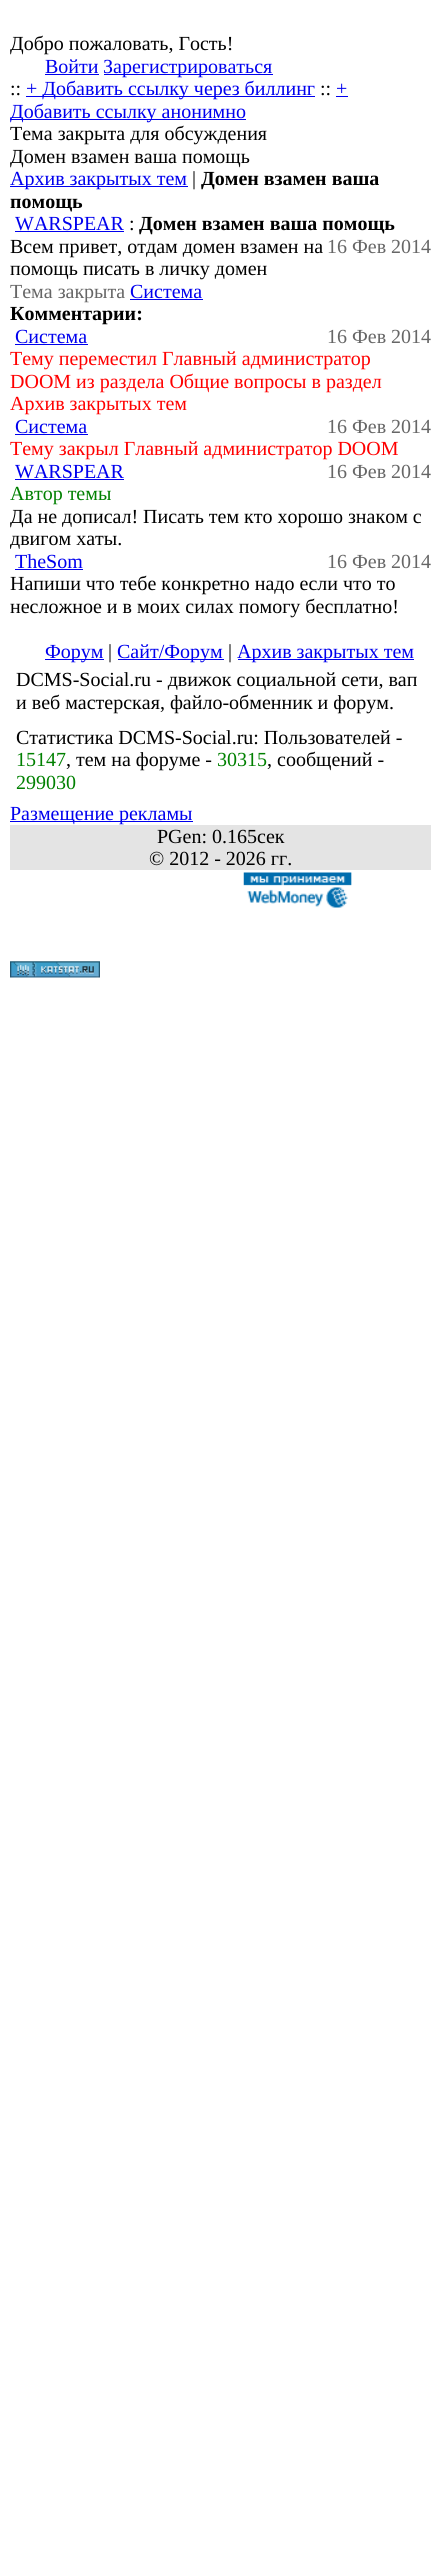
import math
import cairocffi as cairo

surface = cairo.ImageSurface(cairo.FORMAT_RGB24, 441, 2550)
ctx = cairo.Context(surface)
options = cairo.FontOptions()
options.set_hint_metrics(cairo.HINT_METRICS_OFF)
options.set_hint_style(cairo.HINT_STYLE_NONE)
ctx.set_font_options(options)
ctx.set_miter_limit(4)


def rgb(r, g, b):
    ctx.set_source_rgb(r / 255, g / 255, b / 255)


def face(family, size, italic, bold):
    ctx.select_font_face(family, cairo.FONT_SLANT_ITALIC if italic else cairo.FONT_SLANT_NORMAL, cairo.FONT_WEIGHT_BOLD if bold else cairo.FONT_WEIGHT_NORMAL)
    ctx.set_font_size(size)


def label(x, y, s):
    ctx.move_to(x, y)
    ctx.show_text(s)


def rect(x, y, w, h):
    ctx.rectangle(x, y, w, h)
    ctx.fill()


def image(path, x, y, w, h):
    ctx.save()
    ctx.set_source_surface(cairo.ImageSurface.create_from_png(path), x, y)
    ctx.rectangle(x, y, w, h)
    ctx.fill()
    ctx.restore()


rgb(255, 255, 255)
ctx.paint()
face('Liberation Serif', 20, 0, 0)
rgb(0, 0, 0)
label(10, 50, 'Добро пожаловать, Гость!')
rgb(0, 0, 238)
label(45, 73, 'Войти')
rect(45, 74, 54, 1)
rect(104, 74, 169, 1)
label(103, 73, 'Зарегистрироваться')
rgb(0, 0, 0)
label(10, 95, '::')
rgb(0, 0, 238)
rect(26, 96, 289, 1)
label(26, 95, '+ Добавить ссылку через биллинг')
rgb(0, 0, 0)
label(320, 95, '::')
rgb(0, 0, 238)
label(336, 95, '+')
rect(336, 96, 12, 1)
rect(10, 119, 236, 1)
label(10, 118, 'Добавить ссылку анонимно')
rgb(0, 0, 0)
label(10, 140, 'Тема закрыта для обсуждения')
label(10, 163, 'Домен взамен ваша помощь')
rgb(0, 0, 238)
rect(10, 186, 178, 1)
label(10, 185, 'Архив закрытых тем')
rgb(0, 0, 0)
label(192, 185, '|')
face('Liberation Serif', 20, 0, 1)
label(201, 185, 'Домен взамен ваша')
label(10, 208, 'помощь')
face('Liberation Serif', 20, 0, 0)
rgb(0, 0, 238)
label(15, 230, 'WARSPEAR')
rect(15, 231, 109, 1)
rgb(0, 0, 0)
label(129, 230, ':')
face('Liberation Serif', 20, 0, 1)
label(139, 230, 'Домен взамен ваша помощь')
face('Liberation Serif', 20, 0, 0)
label(10, 253, 'Всем привет, отдам домен взамен на')
rgb(102, 102, 102)
label(327, 253, '16 Фев 2014')
rgb(0, 0, 0)
label(10, 275, 'помощь писать в личку домен')
rgb(102, 102, 102)
label(10, 298, 'Тема закрыта')
rgb(0, 0, 238)
label(130, 298, 'Cистема')
rect(130, 299, 73, 1)
face('Liberation Serif', 20, 0, 1)
rgb(0, 0, 0)
label(10, 320, 'Комментарии:')
face('Liberation Serif', 20, 0, 0)
rgb(0, 0, 238)
label(15, 343, 'Cистема')
rect(15, 344, 73, 1)
rgb(102, 102, 102)
label(327, 343, '16 Фев 2014')
rgb(255, 0, 0)
label(10, 365, 'Тему переместил Главный администратор')
label(10, 388, 'DOOM из раздела Общие вопросы в раздел')
label(10, 410, 'Архив закрытых тем')
rgb(0, 0, 238)
label(15, 433, 'Cистема')
rect(15, 434, 73, 1)
rgb(102, 102, 102)
label(327, 433, '16 Фев 2014')
rgb(255, 0, 0)
label(10, 455, 'Тему закрыл Главный администратор DOOM')
rgb(0, 0, 238)
label(15, 478, 'WARSPEAR')
rect(15, 479, 109, 1)
rgb(102, 102, 102)
label(327, 478, '16 Фев 2014')
rgb(0, 128, 0)
label(10, 500, 'Автор темы')
rgb(0, 0, 0)
label(10, 523, 'Да не дописал! Писать тем кто хорошо знаком с')
label(10, 545, 'двигом хаты.')
rgb(0, 0, 238)
label(15, 568, 'TheSom')
rect(15, 569, 68, 1)
rgb(102, 102, 102)
label(327, 568, '16 Фев 2014')
rgb(0, 0, 0)
label(10, 590, 'Напиши что тебе конкретно надо если что то')
label(10, 613, 'несложное и в моих силах помогу бесплатно!')
rgb(0, 0, 238)
rect(45, 659, 59, 1)
label(45, 658, 'Форум')
rgb(0, 0, 0)
label(108, 658, '|')
rgb(0, 0, 238)
rect(118, 659, 106, 1)
label(117, 658, 'Сайт/Форум')
rgb(0, 0, 0)
label(228, 658, '|')
rgb(0, 0, 238)
rect(238, 659, 176, 1)
label(237, 658, 'Архив закрытых тем')
rgb(0, 0, 0)
label(16, 686, 'DCMS-Social.ru - движок социальной сети, вап')
label(16, 709, 'и веб мастерская, файло-обменник и форум.')
label(16, 744, 'Статистика DCMS-Social.ru: Пользователей -')
rgb(0, 128, 0)
label(16, 766, '15147')
rgb(0, 0, 0)
label(66, 766, ', тем на форуме -')
rgb(0, 128, 0)
label(217, 766, '30315')
rgb(0, 0, 0)
label(267, 766, ', сообщений -')
rgb(0, 128, 0)
label(16, 789, '299030')
rgb(0, 0, 238)
rect(10, 821, 183, 1)
label(10, 820, 'Размещение рекламы')
rgb(228, 228, 228)
rect(10, 825, 421, 45)
rgb(0, 0, 0)
label(157, 843, 'PGen: 0.165сек')
label(149, 865, '© 2012 - 2026 гг.')
image('image0.png', 243, 872, 109, 36)
image('image1.png', 10, 961, 90, 17)
surface.write_to_png('render.png')
